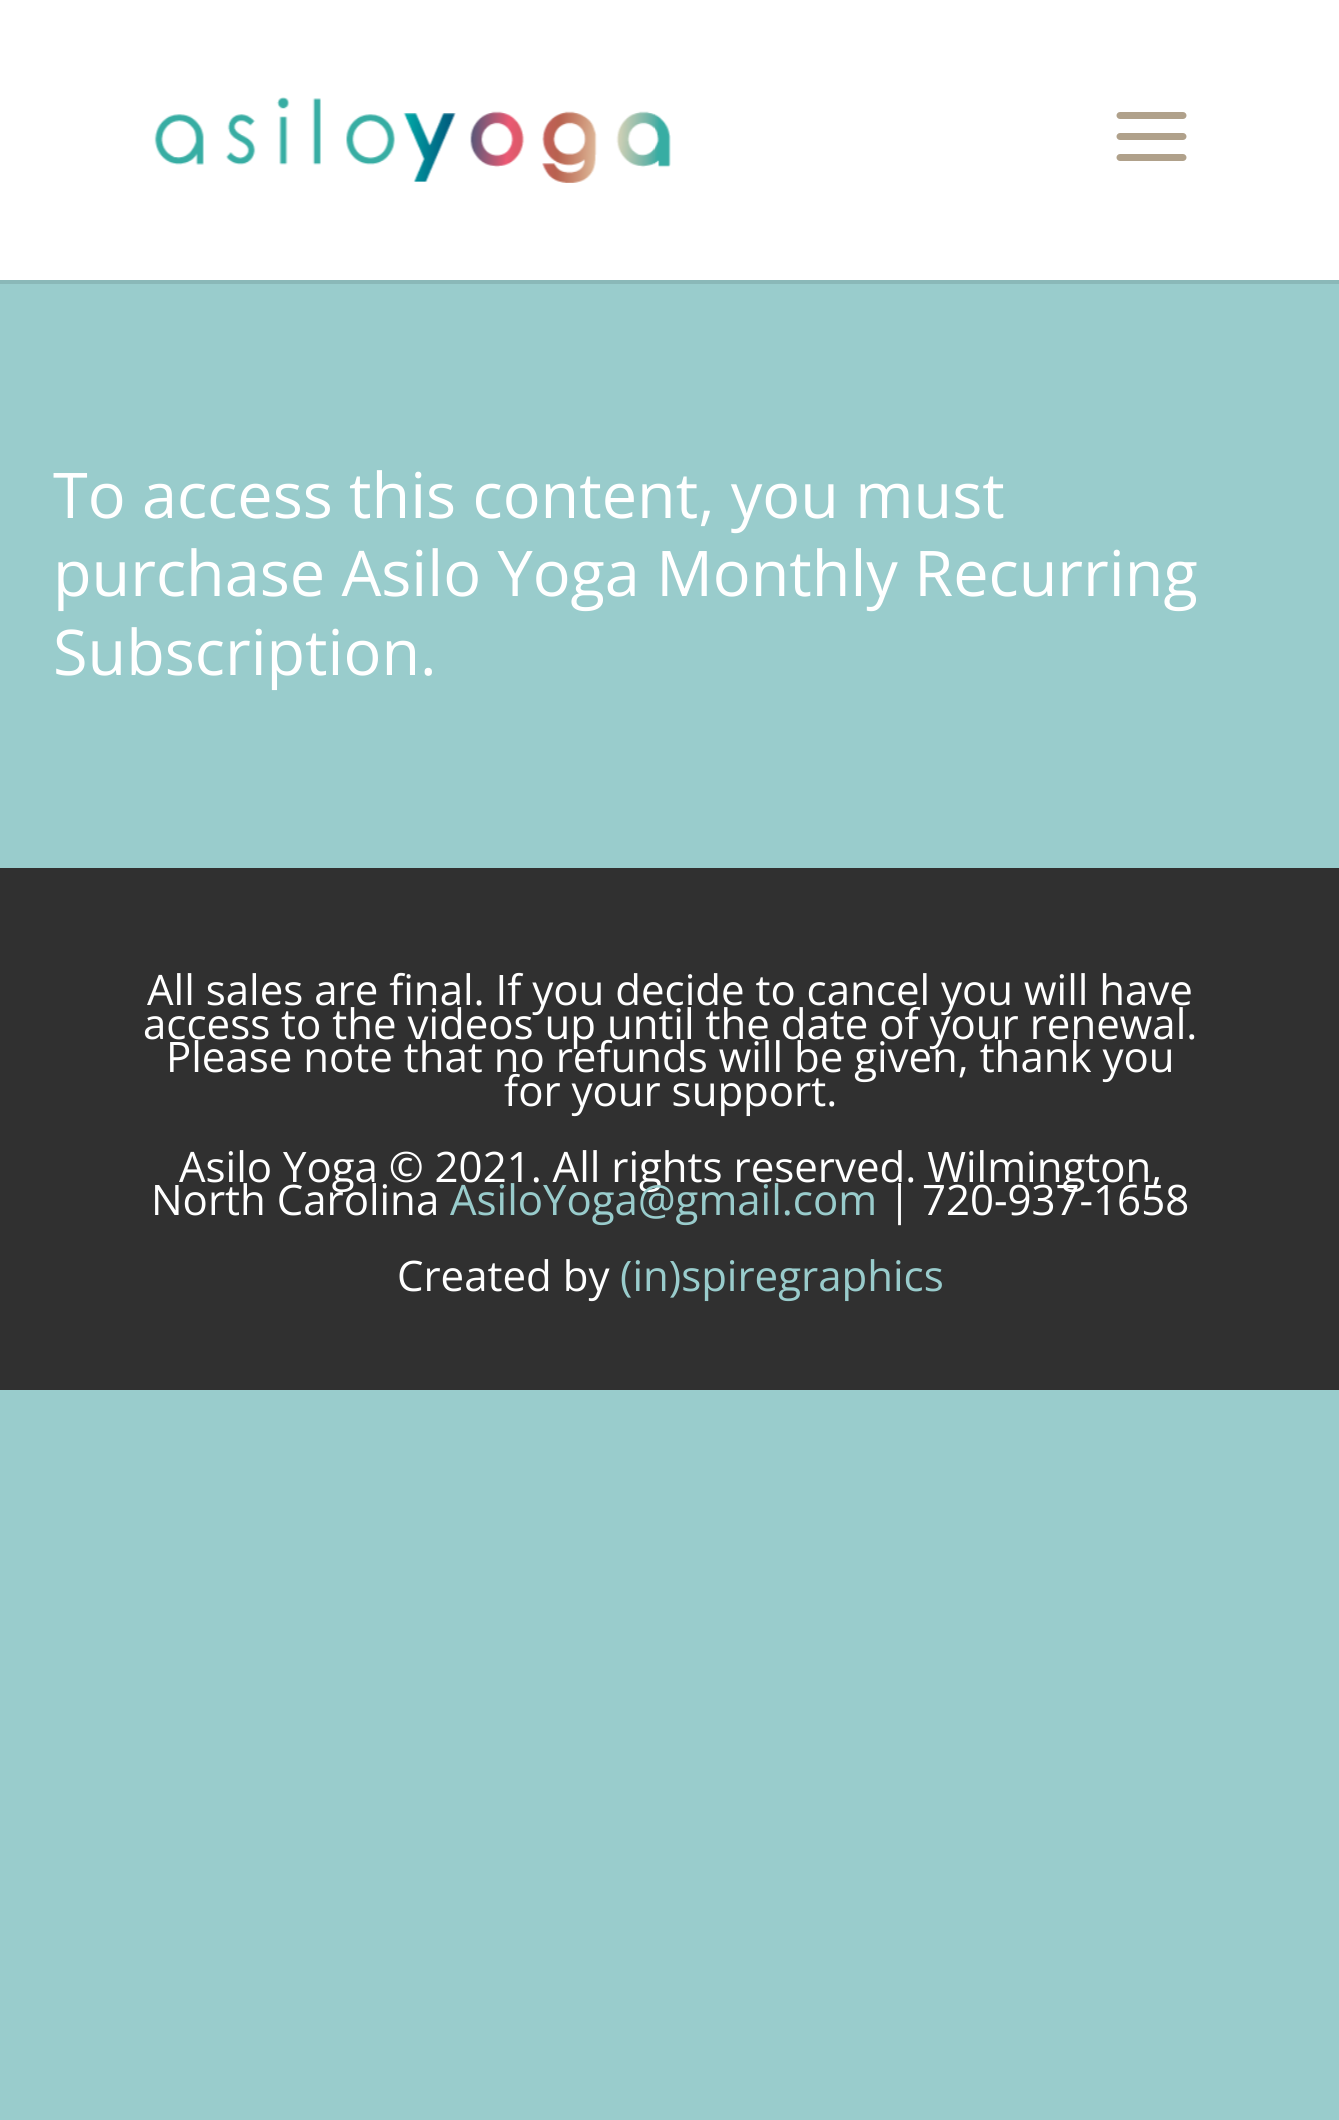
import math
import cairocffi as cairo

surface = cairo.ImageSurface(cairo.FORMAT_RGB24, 1339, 2120)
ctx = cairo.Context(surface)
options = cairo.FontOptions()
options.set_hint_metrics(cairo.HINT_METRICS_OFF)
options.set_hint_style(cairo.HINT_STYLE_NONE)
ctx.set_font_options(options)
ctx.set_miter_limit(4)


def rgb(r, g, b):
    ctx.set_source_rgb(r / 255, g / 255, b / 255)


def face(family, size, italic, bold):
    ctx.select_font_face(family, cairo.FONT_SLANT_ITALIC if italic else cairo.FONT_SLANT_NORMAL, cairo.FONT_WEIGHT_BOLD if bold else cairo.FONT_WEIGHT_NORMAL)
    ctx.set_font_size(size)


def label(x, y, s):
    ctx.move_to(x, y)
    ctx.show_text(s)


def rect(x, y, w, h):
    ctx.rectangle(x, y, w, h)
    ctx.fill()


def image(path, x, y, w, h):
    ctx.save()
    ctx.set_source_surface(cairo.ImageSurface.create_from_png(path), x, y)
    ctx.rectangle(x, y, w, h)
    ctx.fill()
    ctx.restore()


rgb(153, 204, 204)
ctx.paint()
rgb(138, 184, 184)
ctx.new_path()
ctx.move_to(0, 280)
ctx.line_to(0, 284)
ctx.line_to(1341, 284)
ctx.line_to(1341, 4)
ctx.line_to(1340, 4)
ctx.line_to(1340, 280)
ctx.close_path()
ctx.fill()
rgb(255, 255, 255)
rect(0, 0, 1339, 280)
image('image0.png', 154, 97, 517, 86)
image('image1.png', 1116, 112, 71, 49)
face('Open Sans', 63, 0, 0)
label(53, 518, 'To access this content, you must')
label(53, 596, 'purchase Asilo Yoga Monthly Recurring')
label(53, 675, 'Subscription.')
rgb(48, 48, 48)
rect(0, 868, 1339, 522)
face('Open Sans', 42, 0, 0)
rgb(255, 255, 255)
label(147, 1005, 'All sales are final. If you decide to cancel you will have')
label(143, 1039, 'access to the videos up until the date of your renewal.')
label(166, 1072, 'Please note that no refunds will be given, thank you')
label(504, 1106, 'for your support.')
label(179, 1182, 'Asilo Yoga © 2021. All rights reserved. Wilmington,')
label(151, 1215, 'North Carolina')
rgb(153, 204, 204)
label(450, 1215, 'AsiloYoga@gmail.com')
rgb(255, 255, 255)
label(888, 1215, '| 720-937-1658')
label(397, 1291, 'Created by')
rgb(153, 204, 204)
label(620, 1291, '(in)spiregraphics')
surface.write_to_png('render.png')
